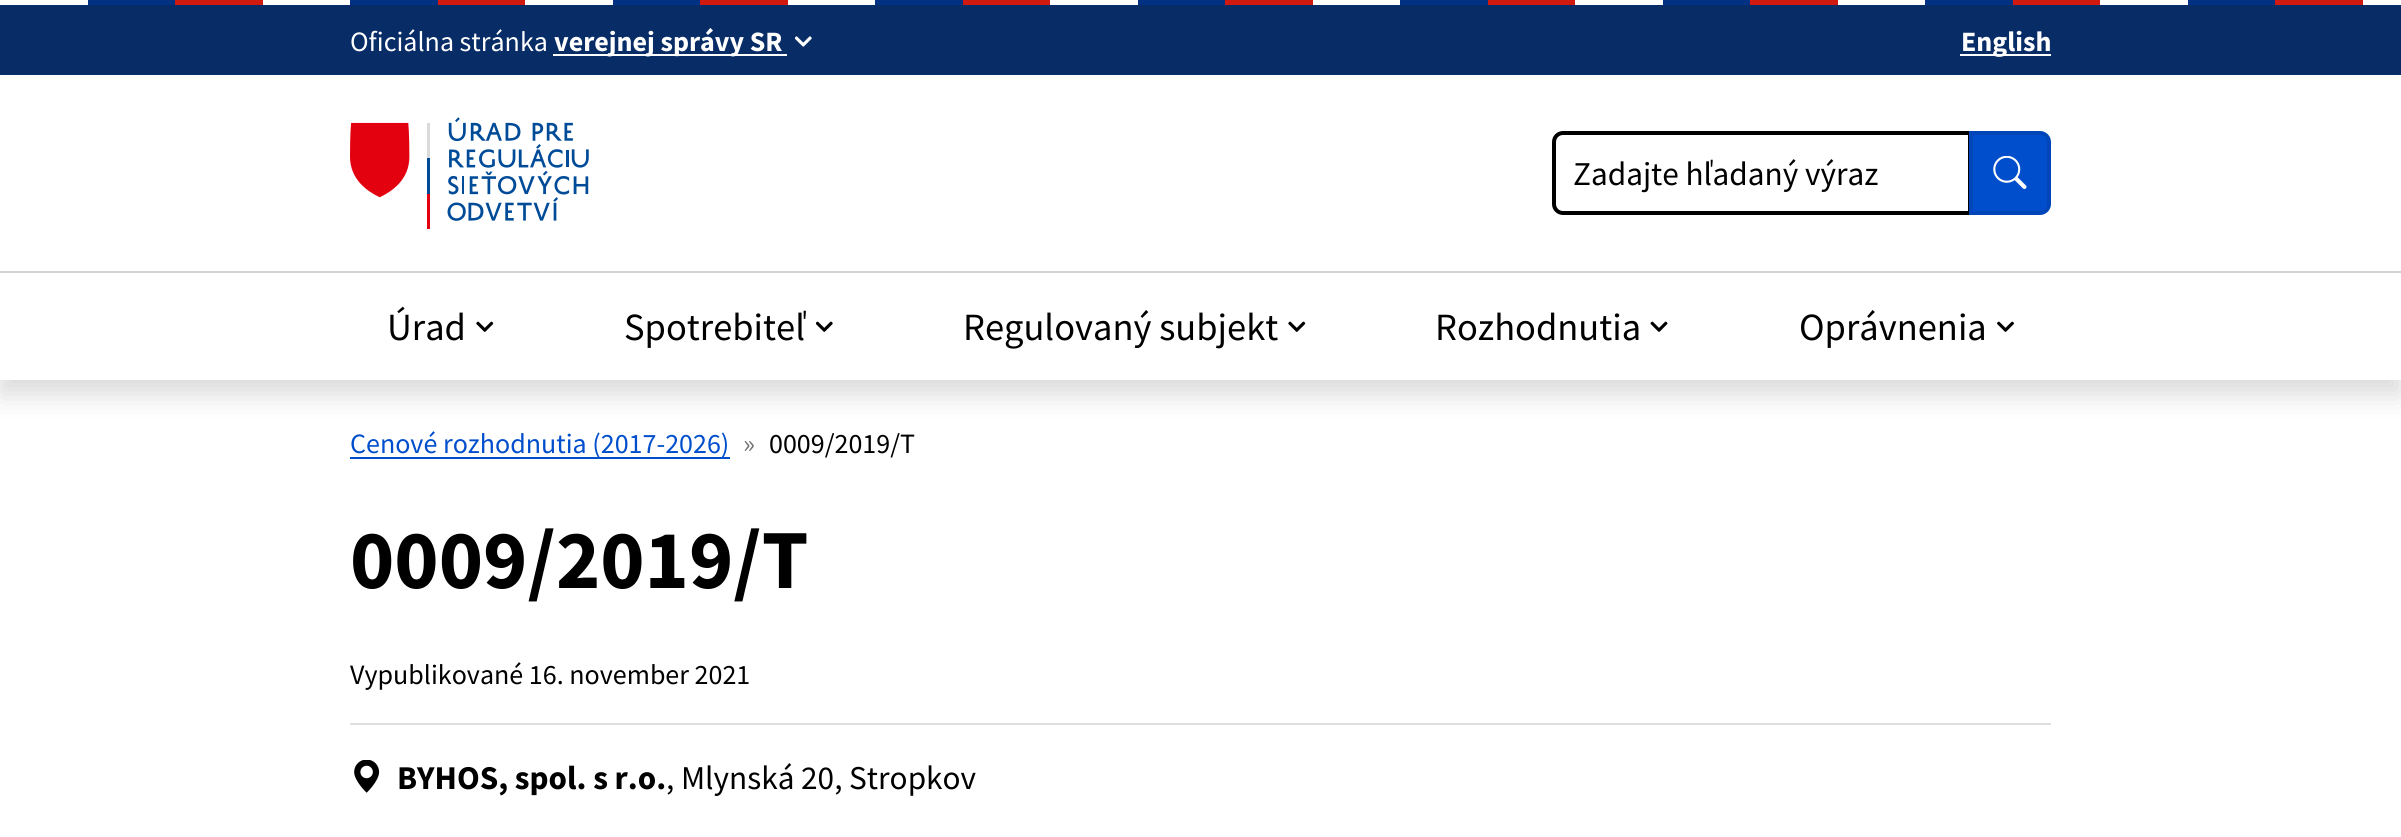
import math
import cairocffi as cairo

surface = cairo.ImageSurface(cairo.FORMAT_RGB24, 2401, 837)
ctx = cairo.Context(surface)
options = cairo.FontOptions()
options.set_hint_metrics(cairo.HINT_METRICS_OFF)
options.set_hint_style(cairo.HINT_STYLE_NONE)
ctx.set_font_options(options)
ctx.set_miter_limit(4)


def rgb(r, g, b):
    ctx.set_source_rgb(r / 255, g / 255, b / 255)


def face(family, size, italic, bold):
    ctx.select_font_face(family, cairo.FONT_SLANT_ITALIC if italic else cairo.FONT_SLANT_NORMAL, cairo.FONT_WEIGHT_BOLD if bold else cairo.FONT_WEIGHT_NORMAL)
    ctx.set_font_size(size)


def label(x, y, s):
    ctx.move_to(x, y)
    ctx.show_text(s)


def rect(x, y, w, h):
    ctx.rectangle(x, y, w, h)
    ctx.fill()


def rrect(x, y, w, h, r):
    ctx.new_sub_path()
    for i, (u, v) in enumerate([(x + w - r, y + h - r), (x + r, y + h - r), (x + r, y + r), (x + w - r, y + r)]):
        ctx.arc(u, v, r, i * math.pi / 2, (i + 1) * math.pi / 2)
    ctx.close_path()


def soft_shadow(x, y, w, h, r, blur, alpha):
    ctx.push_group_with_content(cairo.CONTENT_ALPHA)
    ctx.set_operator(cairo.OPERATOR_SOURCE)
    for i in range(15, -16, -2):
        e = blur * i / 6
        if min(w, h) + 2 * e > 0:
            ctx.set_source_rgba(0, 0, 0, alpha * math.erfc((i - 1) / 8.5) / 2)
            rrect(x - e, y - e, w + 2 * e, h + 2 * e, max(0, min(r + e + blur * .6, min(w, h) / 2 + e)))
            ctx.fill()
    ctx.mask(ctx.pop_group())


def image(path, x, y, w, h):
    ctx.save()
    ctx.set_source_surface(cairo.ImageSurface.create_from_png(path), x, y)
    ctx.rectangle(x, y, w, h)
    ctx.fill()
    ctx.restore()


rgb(255, 255, 255)
ctx.paint()
rgb(0, 0, 0)
soft_shadow(0, 14, 2401, 380, 0, 14, 0.15)
rgb(255, 255, 255)
rect(0, 75, 2401, 305)
rgb(7, 44, 102)
rect(0, 5, 2401, 70)
image('image0.png', 0, 0, 2401, 5)
face('Source Sans Pro', 28, 0, 0)
rgb(255, 255, 255)
label(350, 51, 'Oficiálna stránka')
rect(553, 54, 234, 2)
face('Source Sans Pro', 28, 0, 1)
label(554, 51, 'verejnej správy SR')
image('image1.png', 795, 36, 17, 11)
rect(1960, 54, 91, 2)
label(1961, 51, 'English')
image('image2.png', 350, 117, 239, 112)
ctx.new_path()
ctx.move_to(1563, 133)
ctx.line_to(1970, 133)
ctx.line_to(1970, 213)
ctx.line_to(1563, 213)
ctx.curve_to(1558, 213, 1554, 209, 1554, 204)
ctx.line_to(1554, 142)
ctx.curve_to(1554, 137, 1558, 133, 1563, 133)
ctx.close_path()
rgb(0, 0, 0)
ctx.set_line_width(4)
ctx.stroke()
face('Source Sans Pro', 33.25, 0, 0)
label(1573, 185, 'Zadajte hľadaný výraz')
rgb(0, 78, 204)
ctx.new_path()
ctx.move_to(1969, 131)
ctx.line_to(2040, 131)
ctx.curve_to(2046, 131, 2051, 136, 2051, 142)
ctx.line_to(2051, 204)
ctx.curve_to(2051, 210, 2046, 215, 2040, 215)
ctx.line_to(1969, 215)
ctx.close_path()
ctx.fill()
ctx.new_path()
ctx.move_to(1971, 133)
ctx.line_to(2040, 133)
ctx.curve_to(2045, 133, 2049, 137, 2049, 142)
ctx.line_to(2049, 204)
ctx.curve_to(2049, 209, 2045, 213, 2040, 213)
ctx.line_to(1971, 213)
ctx.close_path()
ctx.set_source_rgba(0, 0, 0, 0.1)
ctx.stroke()
image('image3.png', 1993, 156, 34, 33)
rgb(210, 210, 210)
rect(0, 271, 2401, 2)
face('Source Sans Pro', 38.5, 0, 0)
rgb(0, 0, 0)
label(387, 340, 'Úrad')
image('image4.png', 476, 321, 18, 11)
label(624, 340, 'Spotrebiteľ')
image('image5.png', 816, 321, 17, 11)
label(963, 340, 'Regulovaný subjekt')
image('image4.png', 1288, 321, 18, 11)
label(1435, 340, 'Rozhodnutia')
image('image6.png', 1650, 321, 18, 11)
label(1799, 340, 'Oprávnenia')
image('image7.png', 1997, 321, 17, 11)
rgb(0, 78, 204)
rect(350, 457, 380, 2)
face('Source Sans Pro', 28, 0, 0)
label(350, 453, 'Cenové rozhodnutia (2017-2026)')
rgb(117, 117, 117)
label(743, 453, '»')
rgb(0, 0, 0)
label(769, 453, '0009/2019/T')
face('Source Sans Pro', 84, 0, 1)
label(350, 588, '0009/2019/T')
rgb(224, 224, 224)
rect(350, 723, 1701, 2)
face('Source Sans Pro', 28, 0, 0)
rgb(0, 0, 0)
label(350, 684, 'Vypublikované 16. november 2021')
image('image8.png', 354, 760, 26, 33)
face('Source Sans Pro', 33.25, 0, 1)
label(397, 789, 'BYHOS, spol. s r.o.')
face('Source Sans Pro', 33.25, 0, 0)
label(666, 789, ', Mlynská 20, Stropkov')
surface.write_to_png('render.png')
